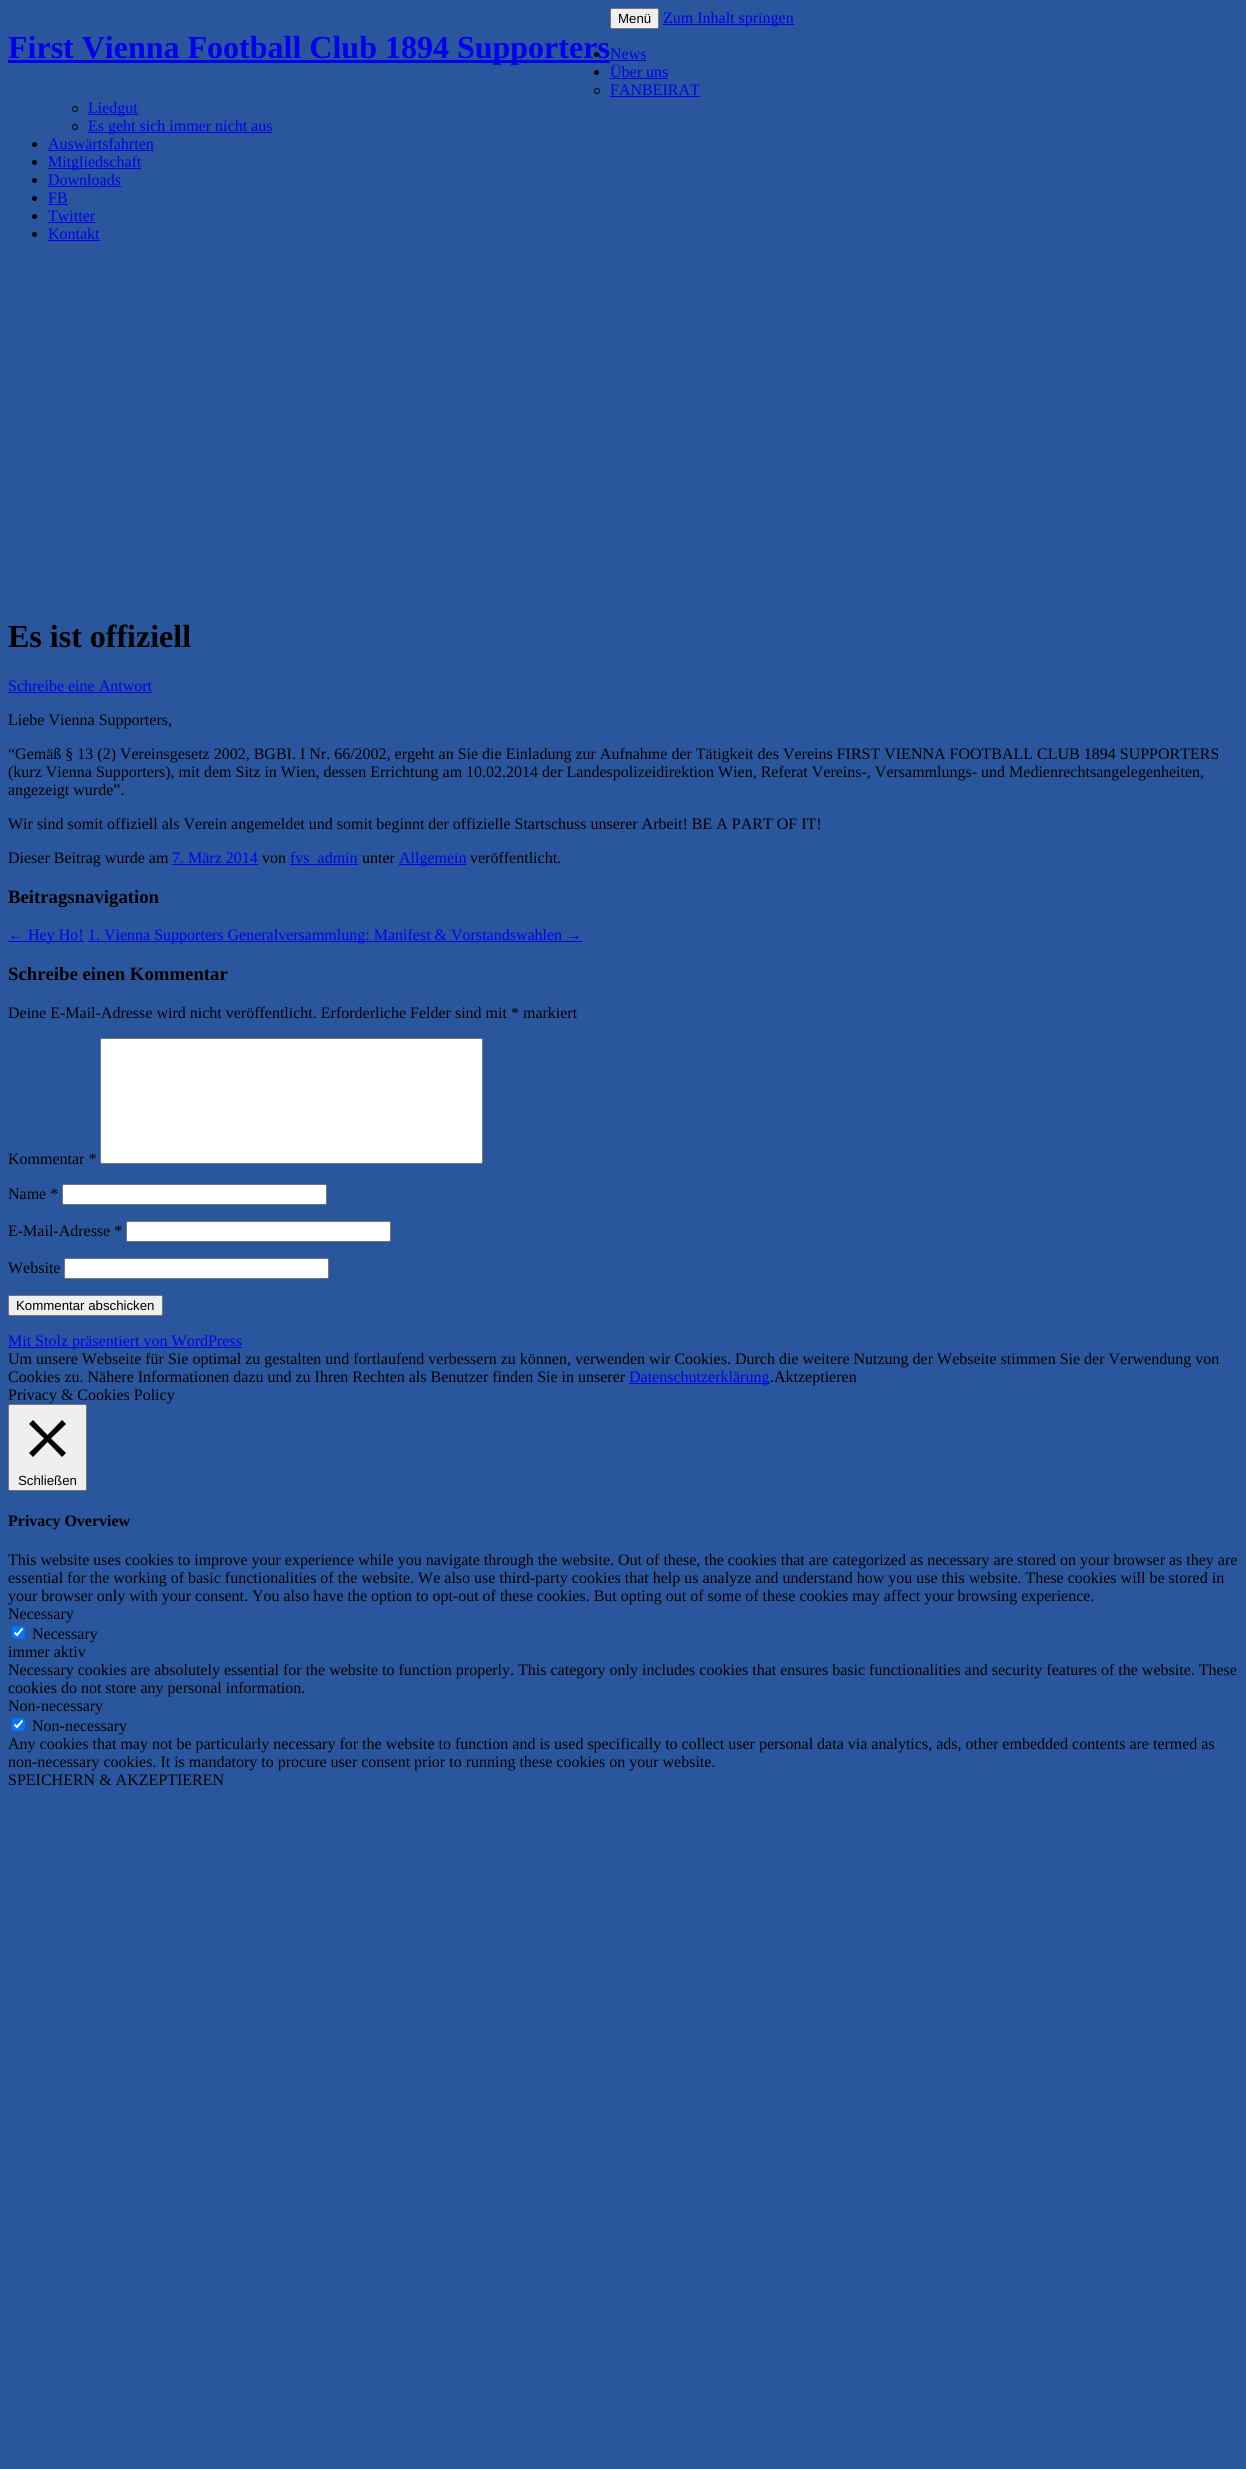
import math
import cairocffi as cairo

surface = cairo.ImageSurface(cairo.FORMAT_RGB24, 1246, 2469)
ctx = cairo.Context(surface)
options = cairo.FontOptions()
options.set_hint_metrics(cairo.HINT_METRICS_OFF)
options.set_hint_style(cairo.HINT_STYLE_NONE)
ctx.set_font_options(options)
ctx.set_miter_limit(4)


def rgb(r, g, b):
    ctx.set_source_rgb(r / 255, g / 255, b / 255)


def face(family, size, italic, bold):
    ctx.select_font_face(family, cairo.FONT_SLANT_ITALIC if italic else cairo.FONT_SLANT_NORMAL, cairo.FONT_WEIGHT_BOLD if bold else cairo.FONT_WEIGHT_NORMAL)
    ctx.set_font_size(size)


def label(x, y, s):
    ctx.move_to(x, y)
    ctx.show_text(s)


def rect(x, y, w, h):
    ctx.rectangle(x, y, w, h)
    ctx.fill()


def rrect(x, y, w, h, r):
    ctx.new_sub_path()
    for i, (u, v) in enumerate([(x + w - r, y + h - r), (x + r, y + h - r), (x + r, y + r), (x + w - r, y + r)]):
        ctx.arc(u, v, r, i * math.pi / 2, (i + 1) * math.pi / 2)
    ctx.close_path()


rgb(42, 86, 157)
ctx.paint()
rgb(239, 239, 239)
rrect(610.5, 8.5, 48, 20, 1.5)
ctx.fill_preserve()
rgb(118, 118, 118)
ctx.set_line_width(1)
ctx.stroke()
face('Liberation Sans', 13.25, 0, 0)
rgb(0, 0, 0)
label(618, 23, 'Menü')
rgb(0, 0, 238)
rect(663, 24, 131, 1)
face('Liberation Serif', 16, 0, 0)
label(663, 23, 'Zum Inhalt springen')
rect(8, 60, 602, 3)
face('Liberation Serif', 32, 0, 1)
label(8, 58, 'First Vienna Football Club 1894 Supporters')
rgb(0, 0, 0)
ctx.new_path()
ctx.arc(596.5, 54.5, 2.5, 0, 2 * math.pi)
ctx.fill()
face('Liberation Serif', 16, 0, 0)
rgb(0, 0, 238)
label(610, 59, 'News')
rect(610, 60, 36, 1)
rgb(0, 0, 0)
ctx.new_path()
ctx.arc(596.5, 72.5, 2.5, 0, 2 * math.pi)
ctx.fill()
rgb(0, 0, 238)
label(610, 77, 'Über uns')
rect(610, 78, 58, 1)
ctx.new_path()
ctx.arc(597, 91, 2.5, 0, 2 * math.pi)
rgb(0, 0, 0)
ctx.stroke()
rgb(0, 0, 238)
label(610, 95, 'FANBEIRAT')
rect(610, 96, 90, 1)
ctx.new_path()
ctx.arc(75, 109, 2.5, 0, 2 * math.pi)
rgb(0, 0, 0)
ctx.stroke()
rgb(0, 0, 238)
rect(88, 114, 50, 1)
label(88, 113, 'Liedgut')
ctx.new_path()
ctx.arc(75, 127, 2.5, 0, 2 * math.pi)
rgb(0, 0, 0)
ctx.stroke()
rgb(0, 0, 238)
rect(88, 132, 184, 1)
label(88, 131, 'Es geht sich immer nicht aus')
rgb(0, 0, 0)
ctx.new_path()
ctx.arc(34.5, 144.5, 2.5, 0, 2 * math.pi)
ctx.fill()
rgb(0, 0, 238)
label(48, 149, 'Auswärtsfahrten')
rect(48, 150, 106, 1)
rgb(0, 0, 0)
ctx.new_path()
ctx.arc(34.5, 162.5, 2.5, 0, 2 * math.pi)
ctx.fill()
rgb(0, 0, 238)
rect(48, 168, 93, 1)
label(48, 167, 'Mitgliedschaft')
rgb(0, 0, 0)
ctx.new_path()
ctx.arc(34.5, 180.5, 2.5, 0, 2 * math.pi)
ctx.fill()
rgb(0, 0, 238)
label(48, 185, 'Downloads')
rect(48, 186, 73, 1)
rgb(0, 0, 0)
ctx.new_path()
ctx.arc(34.5, 198.5, 2.5, 0, 2 * math.pi)
ctx.fill()
rgb(0, 0, 238)
label(48, 203, 'FB')
rect(48, 204, 20, 1)
rgb(0, 0, 0)
ctx.new_path()
ctx.arc(34.5, 216.5, 2.5, 0, 2 * math.pi)
ctx.fill()
rgb(0, 0, 238)
label(48, 221, 'Twitter')
rect(48, 222, 47, 1)
rgb(0, 0, 0)
ctx.new_path()
ctx.arc(34.5, 234.5, 2.5, 0, 2 * math.pi)
ctx.fill()
rgb(0, 0, 238)
label(48, 239, 'Kontakt')
rect(48, 240, 52, 1)
face('Liberation Serif', 32, 0, 1)
rgb(0, 0, 0)
label(8, 647, 'Es ist offiziell')
face('Liberation Serif', 16, 0, 0)
rgb(0, 0, 238)
label(8, 691, 'Schreibe eine Antwort')
rect(8, 692, 144, 1)
rgb(0, 0, 0)
label(8, 725, 'Liebe Vienna Supporters,')
label(8, 759, '“Gemäß § 13 (2) Vereinsgesetz 2002, BGBI. I Nr. 66/2002, ergeht an Sie die Einladung zur Aufnahme der Tätigkeit des Vereins FIRST VIENNA FOOTBALL CLUB 1894 SUPPORTERS')
label(8, 777, '(kurz Vienna Supporters), mit dem Sitz in Wien, dessen Errichtung am 10.02.2014 der Landespolizeidirektion Wien, Referat Vereins-, Versammlungs- und Medienrechtsangelegenheiten,')
label(8, 795, 'angezeigt wurde”.')
label(8, 829, 'Wir sind somit offiziell als Verein angemeldet und somit beginnt der offizielle Startschuss unserer Arbeit! BE A PART OF IT!')
label(8, 863, 'Dieser Beitrag wurde am')
rgb(0, 0, 238)
label(172, 863, '7. März 2014')
rect(172, 864, 86, 1)
rgb(0, 0, 0)
label(262, 863, 'von')
rgb(0, 0, 238)
rect(290, 864, 68, 1)
label(290, 863, 'fvs_admin')
rgb(0, 0, 0)
label(362, 863, 'unter')
rgb(0, 0, 238)
rect(399, 864, 67, 1)
label(399, 863, 'Allgemein')
rgb(0, 0, 0)
label(470, 863, 'veröffentlicht.')
face('Liberation Serif', 18.75, 0, 1)
label(8, 903, 'Beitragsnavigation')
rgb(0, 0, 238)
rect(8, 941, 76, 1)
face('Liberation Serif', 16, 0, 0)
label(8, 940, '← Hey Ho!')
rect(88, 941, 494, 1)
label(88, 940, '1. Vienna Supporters Generalversammlung: Manifest & Vorstandswahlen →')
face('Liberation Serif', 18.75, 0, 1)
rgb(0, 0, 0)
label(8, 980, 'Schreibe einen Kommentar')
face('Liberation Serif', 16, 0, 0)
label(8, 1018, 'Deine E-Mail-Adresse wird nicht veröffentlicht. Erforderliche Felder sind mit * markiert')
label(8, 1164, 'Kommentar *')
rgb(255, 255, 255)
rrect(100.5, 1038.5, 382, 125, 1.5)
ctx.fill_preserve()
rgb(118, 118, 118)
ctx.stroke()
rgb(0, 0, 0)
label(8, 1199, 'Name *')
rgb(255, 255, 255)
rrect(62.5, 1184.5, 264, 20, 1.5)
ctx.fill_preserve()
rgb(118, 118, 118)
ctx.stroke()
rgb(0, 0, 0)
label(8, 1236, 'E-Mail-Adresse *')
rgb(255, 255, 255)
rrect(126.5, 1221.5, 264, 20, 1.5)
ctx.fill_preserve()
rgb(118, 118, 118)
ctx.stroke()
rgb(0, 0, 0)
label(8, 1273, 'Website')
rgb(255, 255, 255)
rrect(64.5, 1258.5, 264, 20, 1.5)
ctx.fill_preserve()
rgb(118, 118, 118)
ctx.stroke()
rgb(239, 239, 239)
rrect(8.5, 1295.5, 154, 20, 1.5)
ctx.fill_preserve()
rgb(118, 118, 118)
ctx.stroke()
face('Liberation Sans', 13.25, 0, 0)
rgb(0, 0, 0)
label(16, 1310, 'Kommentar abschicken')
rgb(0, 0, 238)
rect(8, 1347, 234, 1)
face('Liberation Serif', 16, 0, 0)
label(8, 1346, 'Mit Stolz präsentiert von WordPress')
rgb(0, 0, 0)
label(8, 1364, 'Um unsere Webseite für Sie optimal zu gestalten und fortlaufend verbessern zu können, verwenden wir Cookies. Durch die weitere Nutzung der Webseite stimmen Sie der Verwendung von')
label(8, 1382, 'Cookies zu. Nähere Informationen dazu und zu Ihren Rechten als Benutzer finden Sie in unserer')
rgb(0, 0, 238)
rect(629, 1383, 141, 1)
label(629, 1382, 'Datenschutzerklärung')
rgb(0, 0, 0)
label(770, 1382, '.Aktzeptieren')
label(8, 1400, 'Privacy & Cookies Policy')
rgb(239, 239, 239)
rrect(8.5, 1404.5, 78, 86, 1.5)
ctx.fill_preserve()
rgb(118, 118, 118)
ctx.stroke()
rgb(0, 0, 0)
ctx.new_path()
ctx.move_to(66, 1424)
ctx.line_to(62, 1420)
ctx.line_to(47.5, 1435)
ctx.line_to(33, 1420)
ctx.line_to(29, 1424)
ctx.line_to(44, 1438.5)
ctx.line_to(29, 1453)
ctx.line_to(33, 1457)
ctx.line_to(47.5, 1442)
ctx.line_to(62, 1457)
ctx.line_to(66, 1453)
ctx.line_to(51, 1438.5)
ctx.close_path()
ctx.fill()
face('Liberation Sans', 13.25, 0, 0)
label(18, 1485, 'Schließen')
face('Liberation Serif', 16, 0, 1)
label(8, 1526, 'Privacy Overview')
face('Liberation Serif', 16, 0, 0)
label(8, 1565, 'This website uses cookies to improve your experience while you navigate through the website. Out of these, the cookies that are categorized as necessary are stored on your browser as they are')
label(8, 1583, 'essential for the working of basic functionalities of the website. We also use third-party cookies that help us analyze and understand how you use this website. These cookies will be stored in')
label(8, 1601, 'your browser only with your consent. You also have the option to opt-out of these cookies. But opting out of some of these cookies may affect your browsing experience.')
label(8, 1619, 'Necessary')
rgb(0, 117, 255)
rrect(12, 1626, 13, 13, 2)
ctx.fill()
ctx.new_path()
ctx.move_to(14.5, 1632.5)
ctx.line_to(17, 1635)
ctx.line_to(22.5, 1628.5)
rgb(255, 255, 255)
ctx.set_line_width(2.1)
ctx.stroke()
rgb(0, 0, 0)
label(32, 1639, 'Necessary')
label(8, 1657, 'immer aktiv')
label(8, 1675, 'Necessary cookies are absolutely essential for the website to function properly. This category only includes cookies that ensures basic functionalities and security features of the website. These')
label(8, 1693, 'cookies do not store any personal information.')
label(8, 1711, 'Non-necessary')
rgb(0, 117, 255)
rrect(12, 1718, 13, 13, 2)
ctx.fill()
ctx.new_path()
ctx.move_to(14.5, 1724.5)
ctx.line_to(17, 1727)
ctx.line_to(22.5, 1720.5)
rgb(255, 255, 255)
ctx.stroke()
rgb(0, 0, 0)
label(32, 1731, 'Non-necessary')
label(8, 1749, 'Any cookies that may not be particularly necessary for the website to function and is used specifically to collect user personal data via analytics, ads, other embedded contents are termed as')
label(8, 1767, 'non-necessary cookies. It is mandatory to procure user consent prior to running these cookies on your website.')
label(8, 1785, 'SPEICHERN & AKZEPTIEREN')
surface.write_to_png('render.png')
